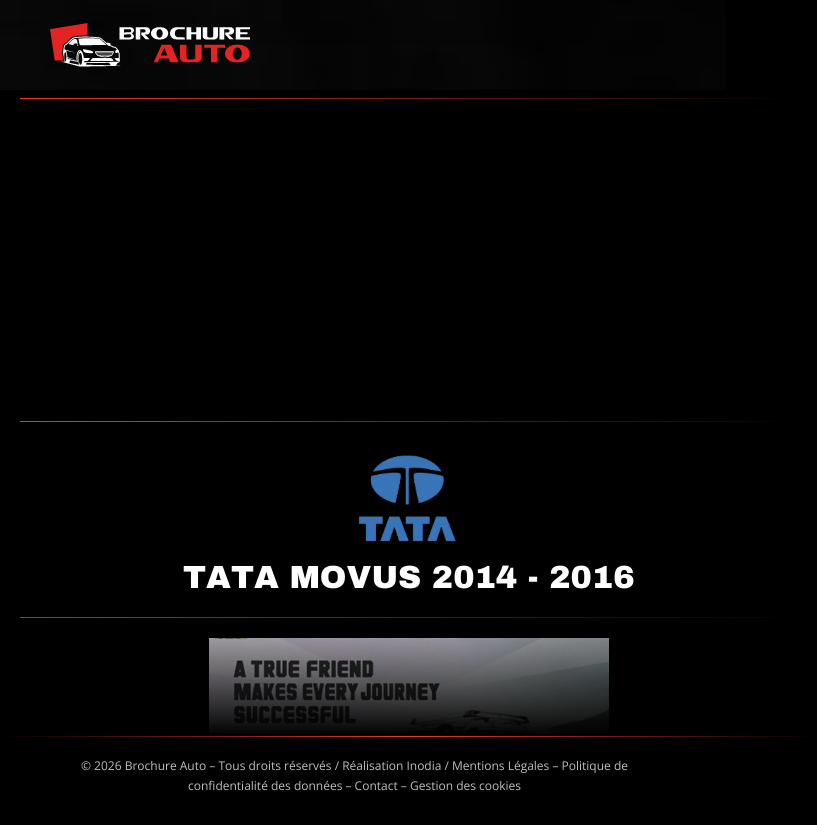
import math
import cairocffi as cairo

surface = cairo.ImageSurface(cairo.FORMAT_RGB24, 817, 825)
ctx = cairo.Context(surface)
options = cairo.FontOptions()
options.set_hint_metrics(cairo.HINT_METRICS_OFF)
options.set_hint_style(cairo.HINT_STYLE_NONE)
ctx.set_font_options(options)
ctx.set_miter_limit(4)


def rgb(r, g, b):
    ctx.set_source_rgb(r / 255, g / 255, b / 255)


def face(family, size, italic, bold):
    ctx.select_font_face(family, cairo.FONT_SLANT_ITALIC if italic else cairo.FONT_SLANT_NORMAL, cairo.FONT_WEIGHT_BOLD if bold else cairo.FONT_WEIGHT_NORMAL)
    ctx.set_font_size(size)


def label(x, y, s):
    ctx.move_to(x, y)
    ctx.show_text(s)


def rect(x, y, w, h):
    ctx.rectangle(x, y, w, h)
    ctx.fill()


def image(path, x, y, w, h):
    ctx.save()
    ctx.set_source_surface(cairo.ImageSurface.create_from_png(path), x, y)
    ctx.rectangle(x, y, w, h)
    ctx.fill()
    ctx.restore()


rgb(0, 0, 0)
ctx.paint()
image('image0.png', 0, 0, 726, 90)
image('image1.png', 50, 23, 200, 44)
gradient = cairo.LinearGradient(20, 99, 797, 98)
gradient.add_color_stop_rgba(0, 0.941, 0.208, 0.173, 1)
gradient.add_color_stop_rgba(1, 0, 0, 0, 1)
ctx.set_source(gradient)
rect(20, 98, 777, 1)
gradient = cairo.LinearGradient(20, 422, 797, 422)
gradient.add_color_stop_rgba(0, 0.941, 0.208, 0.173, 1)
gradient.add_color_stop_rgba(1, 0, 0, 0, 1)
ctx.set_source(gradient)
rect(20, 421, 777, 1)
image('image2.png', 359, 455, 97, 87)
face('Archivo Black Black', 32, 0, 0)
rgb(255, 255, 255)
label(183, 588, 'TATA MOVUS 2014 - 2016')
gradient = cairo.LinearGradient(20, 618, 797, 618)
gradient.add_color_stop_rgba(0, 0.941, 0.208, 0.173, 1)
gradient.add_color_stop_rgba(1, 0, 0, 0, 1)
ctx.set_source(gradient)
rect(20, 617, 777, 1)
image('image3.png', 209, 638, 400, 97)
gradient = cairo.LinearGradient(409, 736, 409, 586)
gradient.add_color_stop_rgba(0, 0, 0, 0, 1)
gradient.add_color_stop_rgba(1, 0, 0, 0, 0)
ctx.set_source(gradient)
rect(20, 617, 737, 118)
gradient = cairo.LinearGradient(0, 737, 817, 737)
gradient.add_color_stop_rgba(0, 0, 0, 0, 1)
gradient.add_color_stop_rgba(0.5, 0.941, 0.208, 0.173, 1)
gradient.add_color_stop_rgba(1, 0, 0, 0, 1)
ctx.set_source(gradient)
rect(0, 736, 817, 1)
face('Open Sans', 12, 0, 0)
rgb(191, 191, 191)
label(81, 770, '© 2026 Brochure Auto – Tous droits réservés / Réalisation Inodia / Mentions Légales – Politique de')
label(188, 790, 'confidentialité des données – Contact – Gestion des cookies')
surface.write_to_png('render.png')
